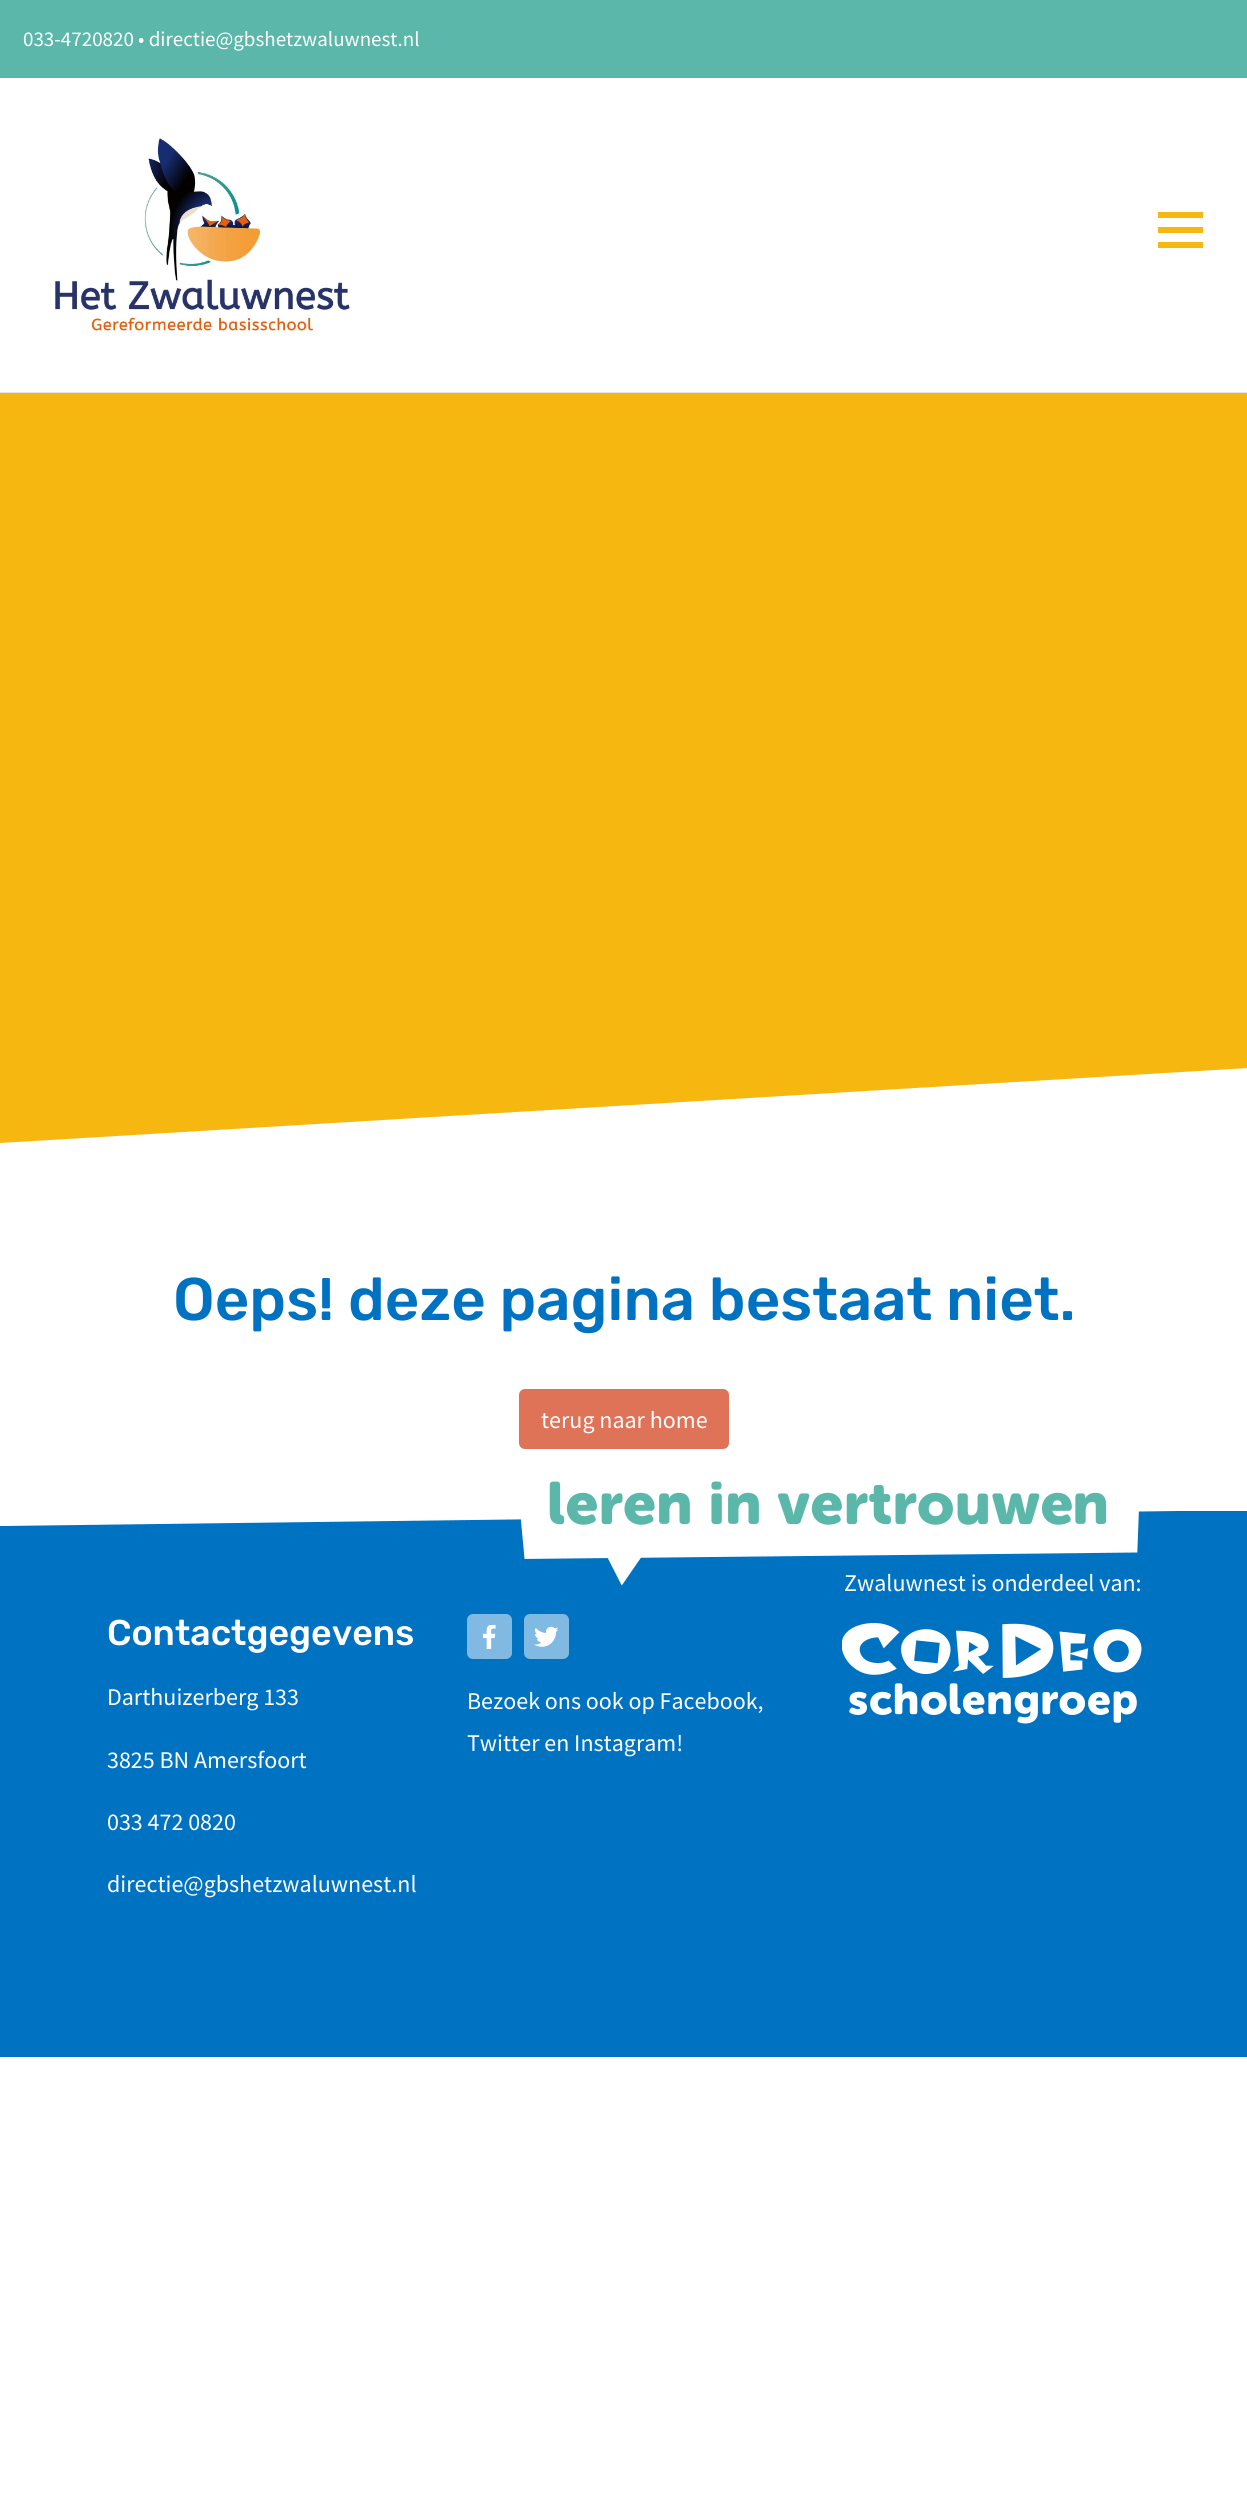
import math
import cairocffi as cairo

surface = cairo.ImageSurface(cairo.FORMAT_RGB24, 1247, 2499)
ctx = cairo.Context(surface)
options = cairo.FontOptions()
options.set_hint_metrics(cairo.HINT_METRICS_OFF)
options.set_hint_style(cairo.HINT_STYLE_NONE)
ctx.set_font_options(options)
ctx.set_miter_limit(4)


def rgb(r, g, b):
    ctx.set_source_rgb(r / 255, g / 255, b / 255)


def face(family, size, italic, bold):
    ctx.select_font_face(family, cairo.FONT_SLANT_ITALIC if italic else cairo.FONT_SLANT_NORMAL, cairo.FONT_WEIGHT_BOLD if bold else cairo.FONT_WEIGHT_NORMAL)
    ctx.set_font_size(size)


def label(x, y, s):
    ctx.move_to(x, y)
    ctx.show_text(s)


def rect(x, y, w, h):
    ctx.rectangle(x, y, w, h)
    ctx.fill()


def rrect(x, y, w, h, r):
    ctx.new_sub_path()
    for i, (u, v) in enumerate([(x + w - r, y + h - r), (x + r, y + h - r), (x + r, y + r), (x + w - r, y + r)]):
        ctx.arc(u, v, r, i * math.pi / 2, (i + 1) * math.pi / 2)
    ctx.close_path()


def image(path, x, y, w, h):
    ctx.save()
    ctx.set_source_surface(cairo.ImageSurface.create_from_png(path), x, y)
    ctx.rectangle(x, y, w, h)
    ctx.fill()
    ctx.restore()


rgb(255, 255, 255)
ctx.paint()
rgb(91, 183, 170)
rect(0, 0, 1247, 78)
face('Source Sans Pro', 21, 0, 0)
rgb(255, 255, 255)
label(23, 46, '033-4720820 • directie@gbshetzwaluwnest.nl')
ctx.set_source_rgba(0, 0, 0, 0.1)
rect(0, 392, 1247, 1)
image('image0.png', 54, 137, 297, 197)
rgb(246, 183, 16)
rect(1158, 227, 45, 6)
rect(1158, 212, 45, 6)
rect(1158, 242, 45, 6)
ctx.new_path()
ctx.move_to(0, 393)
ctx.line_to(0, 1143)
ctx.line_to(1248, 1068)
ctx.line_to(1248, 393)
ctx.close_path()
ctx.fill()
face('Rubik Light', 60, 0, 0)
rgb(0, 114, 194)
label(173, 1320, 'Oeps! deze pagina bestaat niet.')
rgb(223, 115, 87)
rrect(520, 1390, 208, 58, 5)
ctx.fill_preserve()
ctx.stroke()
face('Source Sans Pro', 24, 0, 0)
rgb(255, 255, 255)
label(541, 1428, 'terug naar home')
rgb(0, 114, 194)
ctx.new_path()
ctx.move_to(0, 1526)
ctx.line_to(0, 2057)
ctx.line_to(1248, 2057)
ctx.line_to(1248, 1511)
ctx.line_to(1176, 1511)
ctx.close_path()
ctx.fill()
rgb(255, 255, 255)
label(844, 1591, 'Zwaluwnest is onderdeel van:')
image('image1.png', 520, 1481, 619, 105)
image('image2.png', 842, 1623, 300, 101)
face('Rubik Light', 35.75, 0, 0)
label(107, 1645, 'Contactgegevens')
face('Source Sans Pro', 24, 0, 0)
label(107, 1705, 'Darthuizerberg 133')
label(107, 1768, '3825 BN Amersfoort')
label(107, 1830, '033 472 0820')
label(107, 1892, 'directie@gbshetzwaluwnest.nl')
rgb(128, 185, 225)
rrect(467, 1614, 45, 45, 6)
ctx.fill()
rrect(524, 1614, 45, 45, 6)
ctx.fill()
image('image3.png', 482, 1625, 14, 24)
image('image4.png', 534, 1626, 24, 21)
rgb(255, 255, 255)
label(467, 1709, 'Bezoek ons ook op Facebook,')
label(467, 1751, 'Twitter en Instagram!')
surface.write_to_png('render.png')
